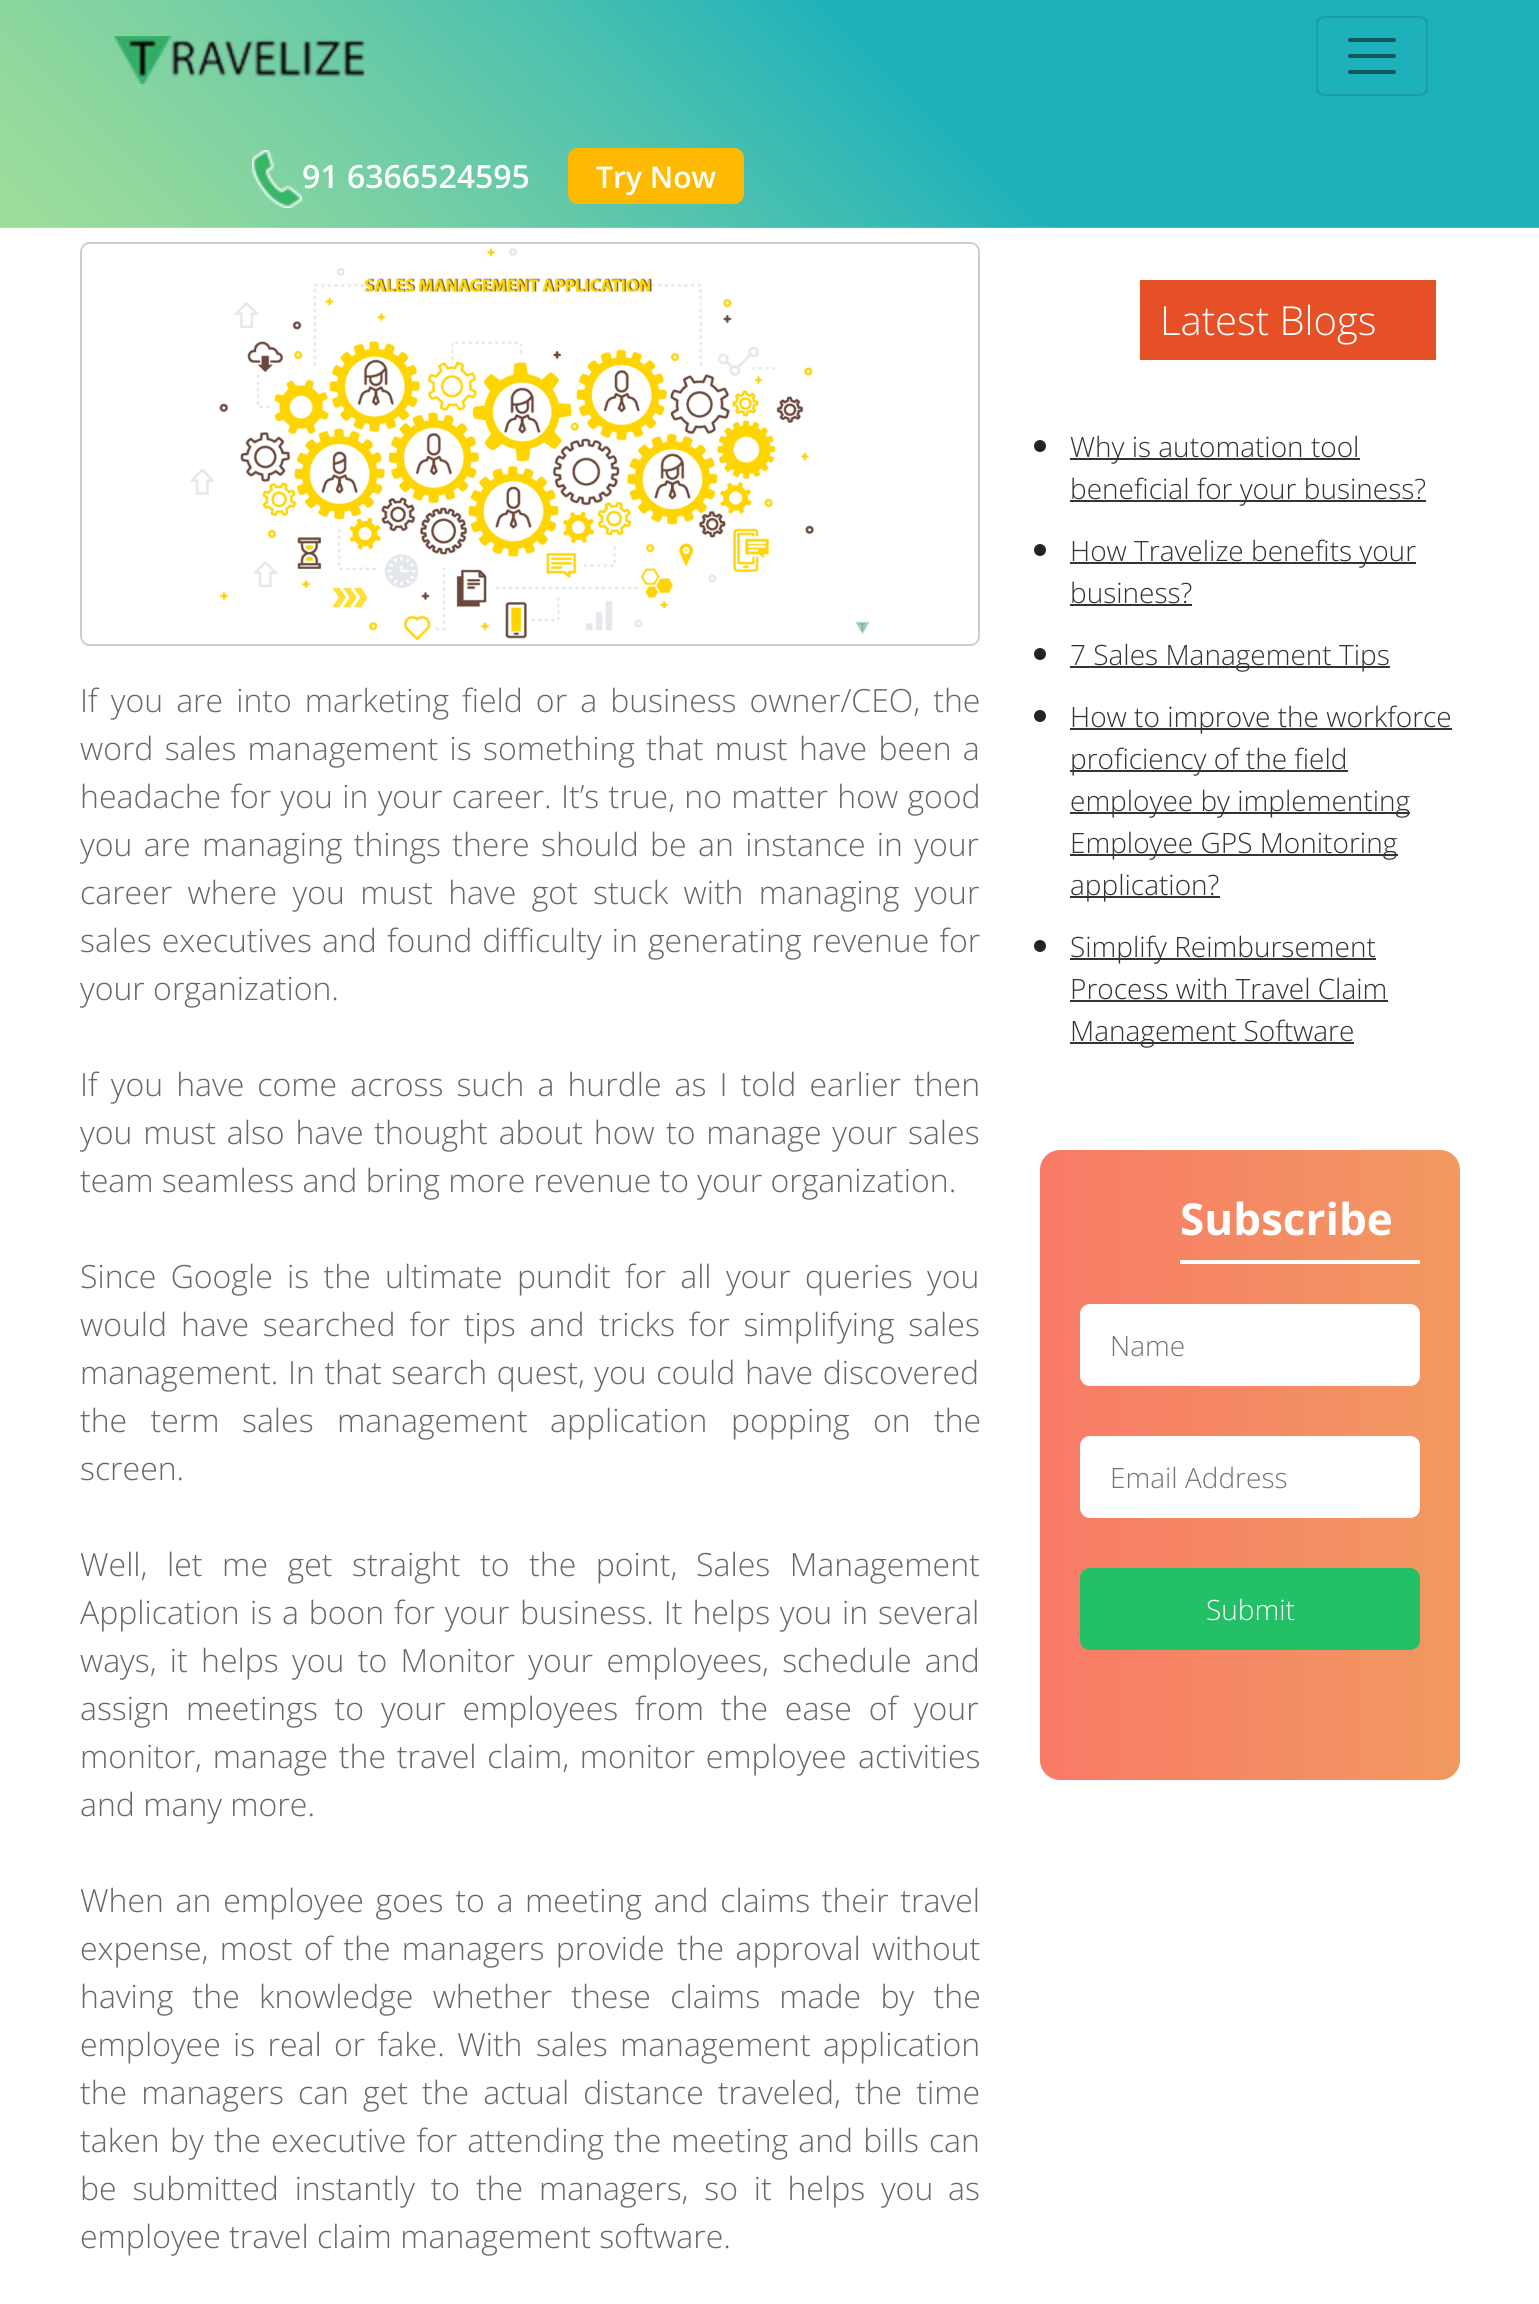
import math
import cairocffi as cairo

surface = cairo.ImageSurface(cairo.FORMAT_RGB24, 1539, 2304)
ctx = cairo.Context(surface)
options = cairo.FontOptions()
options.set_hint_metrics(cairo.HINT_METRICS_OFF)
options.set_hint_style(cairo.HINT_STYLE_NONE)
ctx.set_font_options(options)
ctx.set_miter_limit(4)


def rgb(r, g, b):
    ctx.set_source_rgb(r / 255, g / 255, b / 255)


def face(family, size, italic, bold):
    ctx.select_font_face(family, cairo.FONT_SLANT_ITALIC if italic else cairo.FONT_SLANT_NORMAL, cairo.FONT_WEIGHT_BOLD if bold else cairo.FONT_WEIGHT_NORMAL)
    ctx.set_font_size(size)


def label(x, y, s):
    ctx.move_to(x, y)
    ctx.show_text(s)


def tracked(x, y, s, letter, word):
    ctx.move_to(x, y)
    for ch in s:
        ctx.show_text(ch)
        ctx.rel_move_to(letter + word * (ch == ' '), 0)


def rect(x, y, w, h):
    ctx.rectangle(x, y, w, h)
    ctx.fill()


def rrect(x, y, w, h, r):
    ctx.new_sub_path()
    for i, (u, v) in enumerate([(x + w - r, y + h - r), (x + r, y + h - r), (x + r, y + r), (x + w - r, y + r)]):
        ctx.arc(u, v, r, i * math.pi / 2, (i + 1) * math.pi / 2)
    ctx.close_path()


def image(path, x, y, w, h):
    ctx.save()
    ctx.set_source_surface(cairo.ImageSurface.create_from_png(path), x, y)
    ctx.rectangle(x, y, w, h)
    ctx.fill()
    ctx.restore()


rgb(255, 255, 255)
ctx.paint()
image('image0.png', 0, 0, 1539, 228)
image('image1.png', 113, 36, 252, 48)
rrect(1317, 17, 110, 78, 7)
rgb(26, 159, 168)
ctx.stroke()
ctx.new_path()
ctx.move_to(1350, 40)
ctx.line_to(1394, 40)
ctx.move_to(1350, 56)
ctx.line_to(1394, 56)
ctx.move_to(1350, 72)
ctx.line_to(1394, 72)
rgb(15, 89, 94)
ctx.set_line_width(4)
ctx.set_line_cap(cairo.LINE_CAP_ROUND)
ctx.stroke()
image('image2.png', 252, 150, 50, 58)
face('Open Sans SemiBold', 32, 0, 0)
rgb(255, 255, 255)
label(302, 188, '91 6366524595')
rgb(255, 185, 0)
rrect(568, 148, 176, 56, 10)
ctx.fill()
face('Open Sans SemiBold', 30, 0, 0)
rgb(255, 255, 255)
label(596, 188, 'Try Now')
rrect(81, 243, 898, 402, 9)
rgb(204, 204, 204)
ctx.set_line_width(2)
ctx.set_line_cap(cairo.LINE_CAP_BUTT)
ctx.stroke()
image('image3.png', 82, 244, 896, 400)
face('Open Sans Light', 32, 0, 0)
rgb(103, 103, 103)
tracked(80, 712, 'If you are into marketing field or a business owner/CEO, the', 0, 4.75)
tracked(80, 760, 'word sales management is something that must', 0, 3)
tracked(799, 760, 'have been a', 0, 3)
tracked(80, 808, 'headache for you in your career. It’s true, no matter how good', 0, 1)
tracked(80, 856, 'you are managing things there', 0, 3)
tracked(541, 856, 'should be an instance in your', 0, 3)
tracked(80, 904, 'career where you must have got stuck with managing your', 0, 7)
tracked(80, 952, 'sales executives and', 0, 1.75)
tracked(387, 952, 'found difficulty in generating revenue for', 0, 1.75)
label(80, 1000, 'your organization.')
tracked(80, 1096, 'If you have come across such a hurdle as I told earlier then', 0, 4.75)
tracked(80, 1144, 'you must also have thought about how', 0, 2.5)
tracked(666, 1144, 'to manage your sales', 0, 2.5)
label(80, 1192, 'team seamless and bring more revenue to your organization.')
tracked(80, 1288, 'Since Google is the ultimate pundit for all your queries you', 0, 6)
tracked(80, 1336, 'would have searched for tips and', 0, 5.5)
tracked(599, 1336, 'tricks for simplifying sales', 0, 5.5)
tracked(80, 1384, 'management. In that search quest, you could have discovered', 0, 1.25)
tracked(80, 1432, 'the term', 0, 15)
tracked(242, 1432, 'sales management', 0, 15)
label(550, 1432, 'application')
tracked(731, 1432, 'popping on the', 0, 15)
label(80, 1480, 'screen.')
tracked(80, 1576, 'Well, let me get straight to the point,', 0, 11.25)
tracked(696, 1576, 'Sales Management', 0, 11.25)
label(80, 1624, 'Application')
tracked(250, 1624, 'is a boon for your', 0, 1.5)
tracked(520, 1624, 'business. It helps you in several', 0, 1.5)
tracked(80, 1672, 'ways, it helps you to Monitor your employees, schedule and', 0, 5)
label(80, 1720, 'assign')
tracked(186, 1720, 'meetings to your employees from the ease of your', 0, 8.5)
tracked(80, 1768, 'monitor, manage the travel claim, monitor employee', 0, 2.5)
label(858, 1768, 'activities')
label(80, 1816, 'and many more.')
tracked(80, 1912, 'When an employee goes to a meeting and claims their travel', 0, 3.4)
tracked(80, 1960, 'expense, most of the managers provide', 0, 3)
tracked(677, 1960, 'the approval without', 0, 3)
tracked(80, 2008, 'having the knowledge whether these claims made by the', 0, 11)
tracked(80, 2056, 'employee is real or fake. With', 0, 4)
tracked(536, 2056, 'sales management application', 0, 4)
tracked(80, 2104, 'the managers can get the actual distance traveled, the time', 0, 5.75)
tracked(80, 2152, 'taken by the', 0, 2)
tracked(271, 2152, 'executive for attending the meeting and bills can', 0, 1.75)
tracked(80, 2200, 'be submitted instantly to the managers, so it helps you', 0, 7.5)
label(948, 2200, 'as')
label(80, 2248, 'employee travel claim management software.')
rgb(230, 80, 39)
rect(1140, 280, 296, 80)
face('Open Sans Light', 40, 0, 0)
rgb(255, 255, 255)
label(1160, 335, 'Latest Blogs')
rgb(33, 37, 41)
ctx.new_path()
ctx.arc(1040, 446, 6, 0, 2 * math.pi)
ctx.fill()
rgb(51, 51, 51)
rect(1070, 458, 290, 2)
face('Open Sans Light', 28, 0, 0)
label(1070, 457, 'Why is automation tool')
rect(1070, 500, 356, 2)
label(1070, 499, 'beneficial for your business?')
rgb(33, 37, 41)
ctx.new_path()
ctx.arc(1040, 550, 6, 0, 2 * math.pi)
ctx.fill()
rgb(51, 51, 51)
rect(1070, 562, 346, 2)
label(1070, 561, 'How Travelize benefits your')
label(1070, 603, 'business?')
rect(1070, 604, 122, 2)
rgb(33, 37, 41)
ctx.new_path()
ctx.arc(1040, 654, 6, 0, 2 * math.pi)
ctx.fill()
rgb(51, 51, 51)
rect(1070, 666, 320, 2)
label(1070, 665, '7 Sales Management Tips')
rgb(33, 37, 41)
ctx.new_path()
ctx.arc(1040, 716, 6, 0, 2 * math.pi)
ctx.fill()
rgb(51, 51, 51)
rect(1070, 728, 382, 2)
label(1070, 727, 'How to improve the workforce')
rect(1070, 770, 278, 2)
label(1070, 769, 'proficiency of the field')
rect(1070, 812, 340, 2)
label(1070, 811, 'employee by implementing')
rect(1070, 854, 328, 2)
label(1070, 853, 'Employee GPS Monitoring')
rect(1070, 896, 150, 2)
label(1070, 895, 'application?')
rgb(33, 37, 41)
ctx.new_path()
ctx.arc(1040, 946, 6, 0, 2 * math.pi)
ctx.fill()
rgb(51, 51, 51)
rect(1070, 958, 306, 2)
label(1070, 957, 'Simplify Reimbursement')
label(1070, 999, 'Process with Travel Claim')
rect(1070, 1000, 318, 2)
rect(1070, 1042, 284, 2)
label(1070, 1041, 'Management Software')
gradient = cairo.LinearGradient(1460, 1465, 1040, 1465)
gradient.add_color_stop_rgba(0, 0.945, 0.6, 0.38, 1)
gradient.add_color_stop_rgba(1, 0.976, 0.478, 0.404, 1)
ctx.set_source(gradient)
rrect(1040, 1150, 420, 630, 20)
ctx.fill()
face('Open Sans', 44, 0, 1)
rgb(255, 255, 255)
label(1180, 1235, 'Subscribe')
rect(1180, 1260, 240, 4)
rrect(1080, 1304, 340, 82, 10)
ctx.fill()
face('Open Sans Light', 28, 0, 0)
rgb(117, 117, 117)
label(1110, 1356, 'Name')
rgb(255, 255, 255)
rrect(1080, 1436, 340, 82, 10)
ctx.fill()
rgb(117, 117, 117)
label(1110, 1488, 'Email Address')
rgb(35, 192, 103)
rrect(1080, 1568, 340, 82, 10)
ctx.fill()
rgb(255, 255, 255)
label(1206, 1620, 'Submit')
surface.write_to_png('render.png')
